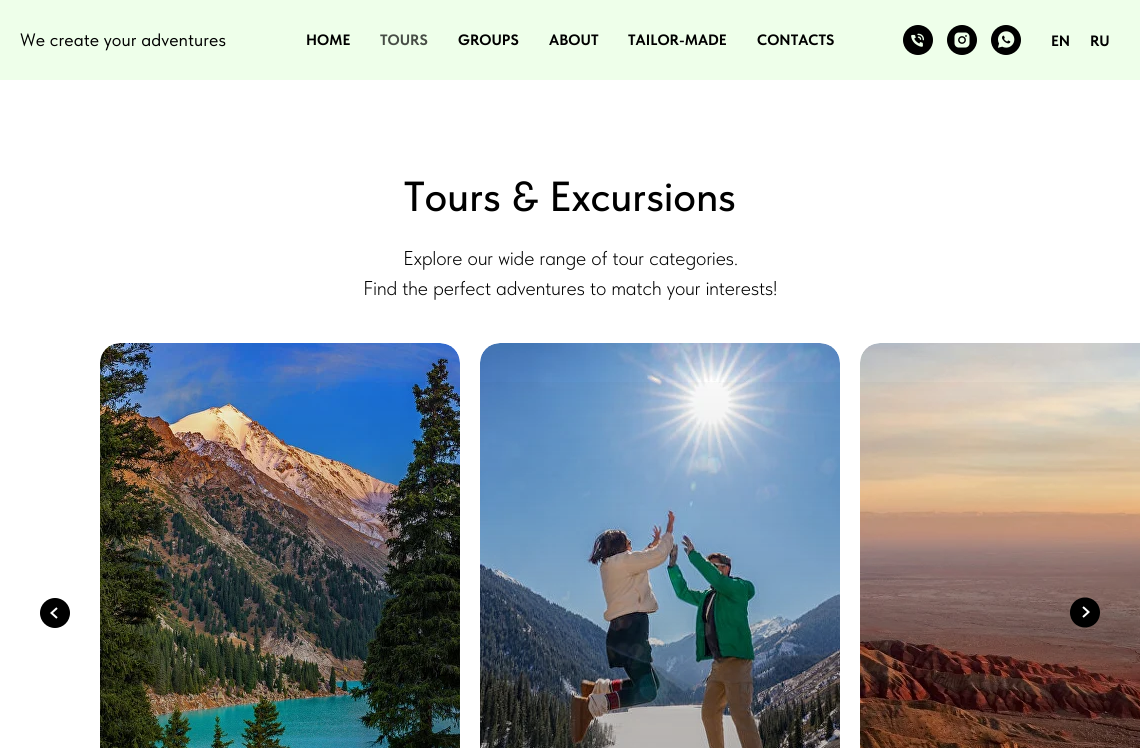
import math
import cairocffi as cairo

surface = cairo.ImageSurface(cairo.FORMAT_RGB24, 1140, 748)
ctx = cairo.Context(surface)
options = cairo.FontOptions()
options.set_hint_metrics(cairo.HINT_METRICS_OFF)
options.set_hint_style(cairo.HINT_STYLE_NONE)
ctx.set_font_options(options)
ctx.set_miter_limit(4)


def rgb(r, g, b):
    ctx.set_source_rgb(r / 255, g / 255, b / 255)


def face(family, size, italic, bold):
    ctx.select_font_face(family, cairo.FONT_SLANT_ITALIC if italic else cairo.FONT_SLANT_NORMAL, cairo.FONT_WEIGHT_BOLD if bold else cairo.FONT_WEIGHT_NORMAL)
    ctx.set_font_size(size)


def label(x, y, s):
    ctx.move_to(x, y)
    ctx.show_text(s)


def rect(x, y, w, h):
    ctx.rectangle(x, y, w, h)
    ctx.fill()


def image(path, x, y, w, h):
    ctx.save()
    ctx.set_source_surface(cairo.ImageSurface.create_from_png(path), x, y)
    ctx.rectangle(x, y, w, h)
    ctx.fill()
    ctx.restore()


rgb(255, 255, 255)
ctx.paint()
rgb(238, 255, 234)
rect(0, 0, 1140, 80)
face('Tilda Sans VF', 18, 0, 0)
rgb(0, 0, 0)
label(20, 46, 'We create your adventures')
face('Tilda Sans VF', 15, 0, 1)
label(306, 45, 'HOME')
rgb(71, 77, 70)
label(380, 45, 'TOURS')
rgb(0, 0, 0)
label(458, 45, 'GROUPS')
label(549, 45, 'ABOUT')
label(628, 45, 'TAILOR-MADE')
label(757, 45, 'CONTACTS')
image('image0.png', 903, 25, 30, 30)
image('image1.png', 947, 25, 30, 30)
image('image2.png', 991, 25, 30, 30)
label(1051, 46, 'EN')
label(1090, 46, 'RU')
face('Tilda Sans VF Medium', 42, 0, 0)
label(404, 211, 'Tours & Excursions')
face('Tilda Sans VF Light', 20, 0, 0)
label(403, 265, 'Explore our wide range of tour categories.')
label(363, 295, 'Find the perfect adventures to match your interests!')
image('image3.png', 100, 343, 360, 405)
gradient = cairo.LinearGradient(280, 343, 280, 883)
gradient.add_color_stop_rgba(0, 0, 0, 0, 0)
gradient.add_color_stop_rgba(1, 0, 0, 0, 0.3)
ctx.set_source(gradient)
rect(100, 382, 360, 366)
image('image4.png', 480, 343, 360, 405)
gradient = cairo.LinearGradient(660, 343, 660, 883)
gradient.add_color_stop_rgba(0, 0, 0, 0, 0)
gradient.add_color_stop_rgba(1, 0, 0, 0, 0.3)
ctx.set_source(gradient)
rect(480, 382, 360, 366)
image('image5.png', 860, 343, 280, 405)
gradient = cairo.LinearGradient(1040, 343, 1040, 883)
gradient.add_color_stop_rgba(0, 0, 0, 0, 0)
gradient.add_color_stop_rgba(1, 0, 0, 0, 0.3)
ctx.set_source(gradient)
rect(860, 382, 280, 366)
rgb(0, 0, 0)
ctx.arc(55, 613, 15, 0, 2 * math.pi)
ctx.fill()
ctx.new_path()
ctx.move_to(57, 608)
ctx.line_to(51.5, 613)
ctx.line_to(57, 618)
rgb(255, 255, 255)
ctx.stroke()
rgb(0, 0, 0)
ctx.new_path()
ctx.move_to(1085, 627.5)
ctx.curve_to(1076.5, 627.5, 1070, 621, 1070, 612.5)
ctx.curve_to(1070, 604, 1076.5, 597.5, 1085, 597.5)
ctx.curve_to(1093.5, 597.5, 1100, 604, 1100, 612.5)
ctx.curve_to(1100, 621, 1093.5, 627.5, 1085, 627.5)
ctx.close_path()
ctx.fill()
ctx.new_path()
ctx.move_to(1083, 617)
ctx.line_to(1088.5, 612)
ctx.line_to(1083, 607)
rgb(255, 255, 255)
ctx.stroke()
surface.write_to_png('render.png')
